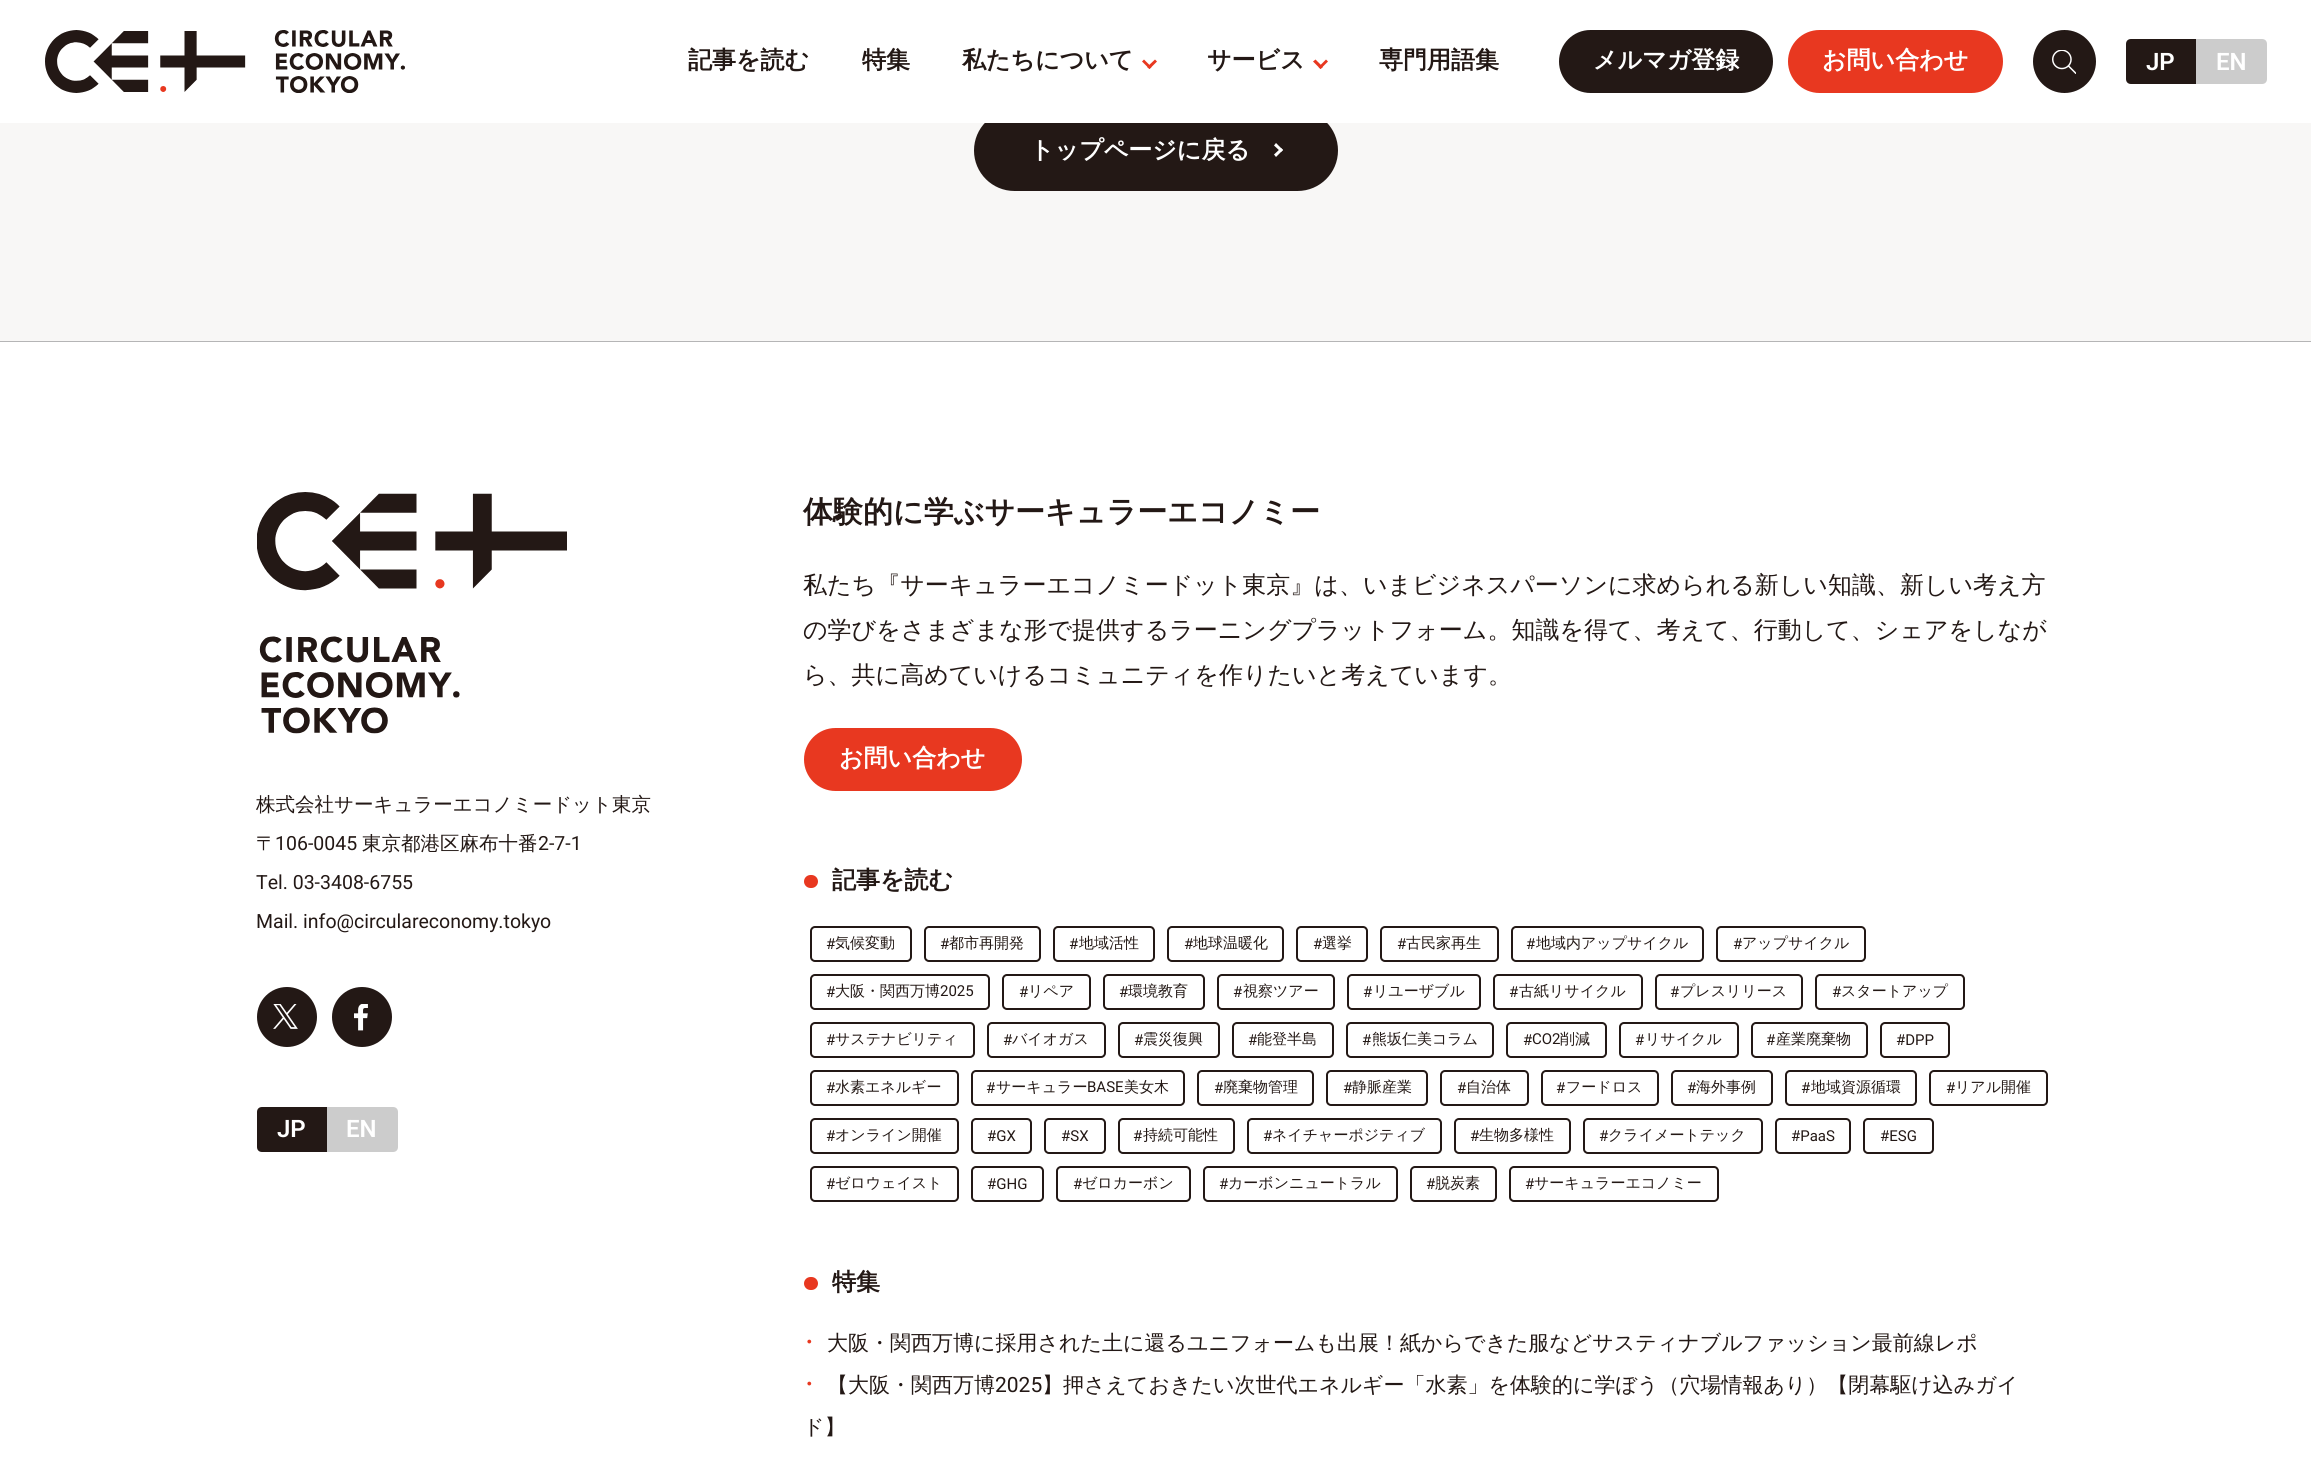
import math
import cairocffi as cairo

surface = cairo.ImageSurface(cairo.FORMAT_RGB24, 2311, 1467)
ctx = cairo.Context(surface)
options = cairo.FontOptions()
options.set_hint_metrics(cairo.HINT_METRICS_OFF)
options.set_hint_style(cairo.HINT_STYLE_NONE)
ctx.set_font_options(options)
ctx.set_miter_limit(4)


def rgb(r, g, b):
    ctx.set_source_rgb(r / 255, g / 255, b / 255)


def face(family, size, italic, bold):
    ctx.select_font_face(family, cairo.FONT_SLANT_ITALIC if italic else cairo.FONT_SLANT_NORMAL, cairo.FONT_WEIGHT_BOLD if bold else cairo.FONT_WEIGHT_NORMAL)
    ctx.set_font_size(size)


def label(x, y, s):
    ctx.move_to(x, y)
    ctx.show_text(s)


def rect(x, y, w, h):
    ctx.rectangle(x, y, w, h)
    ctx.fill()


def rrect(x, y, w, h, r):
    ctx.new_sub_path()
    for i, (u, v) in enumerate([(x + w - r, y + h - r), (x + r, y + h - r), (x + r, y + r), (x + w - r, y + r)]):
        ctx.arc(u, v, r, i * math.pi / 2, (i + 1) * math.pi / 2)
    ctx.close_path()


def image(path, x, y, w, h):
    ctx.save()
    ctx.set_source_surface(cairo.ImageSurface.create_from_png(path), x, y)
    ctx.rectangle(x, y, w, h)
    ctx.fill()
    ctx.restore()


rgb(248, 247, 246)
ctx.paint()
rgb(35, 24, 21)
rrect(975, 111, 362, 79, 39.5)
ctx.fill_preserve()
ctx.stroke()
rgb(255, 255, 255)
rect(0, 0, 2311, 123)
image('image0.png', 45, 30, 360, 63)
face('WenQuanYi Zen Hei', 24, 0, 1)
rgb(35, 24, 21)
label(688, 68, '記事を読む')
label(862, 68, '特集')
label(962, 68, '私たちについて')
rgb(232, 56, 32)
ctx.new_path()
ctx.move_to(1157, 61.5)
ctx.line_to(1149.5, 69)
ctx.line_to(1147, 67)
ctx.line_to(1155, 59.5)
ctx.close_path()
ctx.fill()
ctx.new_path()
ctx.move_to(1151.5, 67)
ctx.line_to(1149.5, 69)
ctx.line_to(1142, 61.5)
ctx.line_to(1144, 59.5)
ctx.close_path()
ctx.fill()
rgb(35, 24, 21)
label(1207, 68, 'サービス')
rgb(232, 56, 32)
ctx.new_path()
ctx.move_to(1328, 61.5)
ctx.line_to(1320.5, 69)
ctx.line_to(1318.5, 67)
ctx.line_to(1326, 59.5)
ctx.close_path()
ctx.fill()
ctx.new_path()
ctx.move_to(1323, 67)
ctx.line_to(1320.5, 69)
ctx.line_to(1313, 61.5)
ctx.line_to(1315.5, 59.5)
ctx.close_path()
ctx.fill()
rgb(35, 24, 21)
label(1379, 68, '専門用語集')
rrect(1560, 31, 212, 61, 30.5)
ctx.fill_preserve()
ctx.stroke()
rgb(255, 255, 255)
label(1593, 68, 'メルマガ登録')
rgb(232, 56, 32)
rrect(1789, 31, 213, 61, 30.5)
ctx.fill_preserve()
ctx.stroke()
rgb(255, 255, 255)
label(1822, 68, 'お問い合わせ')
rgb(35, 24, 21)
ctx.new_path()
ctx.arc(2064.5, 61.5, 30.5, 0, 2 * math.pi)
ctx.fill_preserve()
ctx.stroke()
image('image1.png', 2052, 50, 24, 24)
ctx.new_path()
ctx.move_to(2131, 39)
ctx.line_to(2196, 39)
ctx.line_to(2196, 84)
ctx.line_to(2131, 84)
ctx.curve_to(2128, 84, 2126, 82, 2126, 79)
ctx.line_to(2126, 44)
ctx.curve_to(2126, 41, 2128, 39, 2131, 39)
ctx.close_path()
ctx.fill()
face('Roboto SemiBold', 24, 0, 0)
rgb(255, 255, 255)
label(2146, 70, 'JP')
rgb(204, 204, 204)
ctx.new_path()
ctx.move_to(2196, 39)
ctx.line_to(2262, 39)
ctx.curve_to(2265, 39, 2267, 41, 2267, 44)
ctx.line_to(2267, 79)
ctx.curve_to(2267, 82, 2265, 84, 2262, 84)
ctx.line_to(2196, 84)
ctx.close_path()
ctx.fill()
rgb(255, 255, 255)
label(2216, 70, 'EN')
rgb(181, 181, 182)
rect(0, 341, 2311, 1)
face('WenQuanYi Zen Hei', 24, 0, 1)
rgb(255, 255, 255)
label(1030, 158, 'トップページに戻る')
ctx.new_path()
ctx.move_to(1276, 143)
ctx.line_to(1283, 150)
ctx.line_to(1281, 152)
ctx.line_to(1274, 145.5)
ctx.close_path()
ctx.fill()
ctx.new_path()
ctx.move_to(1281, 148)
ctx.line_to(1283, 150)
ctx.line_to(1276, 157)
ctx.line_to(1274, 154.5)
ctx.close_path()
ctx.fill()
rect(0, 342, 2311, 1125)
image('image2.png', 257, 492, 310, 242)
face('WenQuanYi Zen Hei Medium', 19.5, 0, 0)
rgb(35, 24, 21)
label(256, 811, '株式会社サーキュラーエコノミードット東京')
label(256, 850, '〒')
face('Roboto', 19.5, 0, 0)
label(275, 850, '106-0045')
face('WenQuanYi Zen Hei Medium', 19.5, 0, 0)
label(362, 850, '東京都港区麻布十番')
face('Roboto', 19.5, 0, 0)
label(538, 850, '2-7-1')
label(256, 889, 'Tel. 03-3408-6755')
label(256, 928, 'Mail. info@circulareconomy.tokyo')
ctx.new_path()
ctx.arc(287, 1017, 30, 0, 2 * math.pi)
ctx.fill()
image('image3.png', 273, 1004, 25, 25)
ctx.arc(362, 1017, 30, 0, 2 * math.pi)
ctx.fill()
image('image4.png', 354, 1004, 14, 27)
ctx.new_path()
ctx.move_to(262, 1107)
ctx.line_to(327, 1107)
ctx.line_to(327, 1152)
ctx.line_to(262, 1152)
ctx.curve_to(259, 1152, 257, 1150, 257, 1147)
ctx.line_to(257, 1112)
ctx.curve_to(257, 1109, 259, 1107, 262, 1107)
ctx.close_path()
ctx.fill()
face('Roboto SemiBold', 24, 0, 0)
rgb(255, 255, 255)
label(277, 1137, 'JP')
rgb(204, 204, 204)
ctx.new_path()
ctx.move_to(327, 1107)
ctx.line_to(393, 1107)
ctx.curve_to(396, 1107, 398, 1109, 398, 1112)
ctx.line_to(398, 1147)
ctx.curve_to(398, 1150, 396, 1152, 393, 1152)
ctx.line_to(327, 1152)
ctx.close_path()
ctx.fill()
rgb(255, 255, 255)
label(346, 1137, 'EN')
face('WenQuanYi Zen Hei', 30, 0, 1)
rgb(35, 24, 21)
label(803, 522, '体験的に学ぶサーキュラーエコノミー')
face('WenQuanYi Zen Hei Medium', 24, 0, 0)
label(803, 593, '私たち『サーキュラーエコノミードット東京』は、いまビジネスパーソンに求められる新しい知識、新しい考え方')
label(803, 638, 'の学びをさまざまな形で提供するラーニングプラットフォーム。知識を得て、考えて、行動して、シェアをしなが')
label(803, 683, 'ら、共に高めていけるコミュニティを作りたいと考えています。')
rgb(232, 56, 32)
rrect(805, 729, 216, 61, 30.5)
ctx.fill_preserve()
ctx.stroke()
face('WenQuanYi Zen Hei', 24, 0, 1)
rgb(255, 255, 255)
label(839, 766, 'お問い合わせ')
rgb(232, 56, 32)
rrect(804, 875, 14, 13, 6.5)
ctx.fill()
rgb(35, 24, 21)
label(832, 888, '記事を読む')
rrect(811, 927, 100, 34, 4)
ctx.stroke()
face('Roboto', 15, 0, 0)
label(826, 949, '#')
face('WenQuanYi Zen Hei Medium', 15, 0, 0)
label(835, 948, '気候変動')
rrect(925, 927, 115, 34, 4)
ctx.stroke()
face('Roboto', 15, 0, 0)
label(940, 949, '#')
face('WenQuanYi Zen Hei Medium', 15, 0, 0)
label(949, 948, '都市再開発')
rrect(1054, 927, 100, 34, 4)
ctx.stroke()
face('Roboto', 15, 0, 0)
label(1069, 949, '#')
face('WenQuanYi Zen Hei Medium', 15, 0, 0)
label(1079, 948, '地域活性')
rrect(1168, 927, 115, 34, 4)
ctx.stroke()
face('Roboto', 15, 0, 0)
label(1184, 949, '#')
face('WenQuanYi Zen Hei Medium', 15, 0, 0)
label(1193, 948, '地球温暖化')
rrect(1297, 927, 70, 34, 4)
ctx.stroke()
face('Roboto', 15, 0, 0)
label(1313, 949, '#')
face('WenQuanYi Zen Hei Medium', 15, 0, 0)
label(1322, 948, '選挙')
rrect(1381, 927, 117, 34, 4)
ctx.stroke()
face('Roboto', 15, 0, 0)
label(1397, 949, '#')
face('WenQuanYi Zen Hei Medium', 15, 0, 0)
label(1406, 948, '古民家再生')
rrect(1512, 927, 191, 34, 4)
ctx.stroke()
face('Roboto', 15, 0, 0)
label(1526, 949, '#')
face('WenQuanYi Zen Hei Medium', 15, 0, 0)
label(1536, 948, '地域内アップサイクル')
rrect(1717, 927, 148, 34, 4)
ctx.stroke()
face('Roboto', 15, 0, 0)
label(1733, 949, '#')
face('WenQuanYi Zen Hei Medium', 15, 0, 0)
label(1742, 948, 'アップサイクル')
rrect(811, 975, 178, 34, 4)
ctx.stroke()
face('Roboto', 15, 0, 0)
label(826, 997, '#')
face('WenQuanYi Zen Hei Medium', 15, 0, 0)
label(835, 996, '大阪・関西万博')
face('Roboto', 15, 0, 0)
label(940, 996, '2025')
rrect(1003, 975, 87, 34, 4)
ctx.stroke()
label(1019, 997, '#')
face('WenQuanYi Zen Hei Medium', 15, 0, 0)
label(1028, 996, 'リペア')
rrect(1104, 975, 100, 34, 4)
ctx.stroke()
face('Roboto', 15, 0, 0)
label(1119, 997, '#')
face('WenQuanYi Zen Hei Medium', 15, 0, 0)
label(1128, 996, '環境教育')
rrect(1218, 975, 116, 34, 4)
ctx.stroke()
face('Roboto', 15, 0, 0)
label(1233, 997, '#')
face('WenQuanYi Zen Hei Medium', 15, 0, 0)
label(1243, 996, '視察ツアー')
rrect(1348, 975, 132, 34, 4)
ctx.stroke()
face('Roboto', 15, 0, 0)
label(1363, 997, '#')
face('WenQuanYi Zen Hei Medium', 15, 0, 0)
label(1373, 996, 'リユーザブル')
rrect(1494, 975, 148, 34, 4)
ctx.stroke()
face('Roboto', 15, 0, 0)
label(1509, 997, '#')
face('WenQuanYi Zen Hei Medium', 15, 0, 0)
label(1519, 996, '古紙リサイクル')
rrect(1656, 975, 146, 34, 4)
ctx.stroke()
face('Roboto', 15, 0, 0)
label(1670, 997, '#')
face('WenQuanYi Zen Hei Medium', 15, 0, 0)
label(1680, 996, 'プレスリリース')
rrect(1816, 975, 148, 34, 4)
ctx.stroke()
face('Roboto', 15, 0, 0)
label(1832, 997, '#')
face('WenQuanYi Zen Hei Medium', 15, 0, 0)
label(1841, 996, 'スタートアップ')
rrect(811, 1023, 163, 34, 4)
ctx.stroke()
face('Roboto', 15, 0, 0)
label(826, 1045, '#')
face('WenQuanYi Zen Hei Medium', 15, 0, 0)
label(835, 1044, 'サステナビリティ')
rrect(988, 1023, 117, 34, 4)
ctx.stroke()
face('Roboto', 15, 0, 0)
label(1003, 1045, '#')
face('WenQuanYi Zen Hei Medium', 15, 0, 0)
label(1012, 1044, 'バイオガス')
rrect(1119, 1023, 100, 34, 4)
ctx.stroke()
face('Roboto', 15, 0, 0)
label(1134, 1045, '#')
face('WenQuanYi Zen Hei Medium', 15, 0, 0)
label(1143, 1044, '震災復興')
rrect(1233, 1023, 100, 34, 4)
ctx.stroke()
face('Roboto', 15, 0, 0)
label(1248, 1045, '#')
face('WenQuanYi Zen Hei Medium', 15, 0, 0)
label(1257, 1044, '能登半島')
rrect(1347, 1023, 146, 34, 4)
ctx.stroke()
face('Roboto', 15, 0, 0)
label(1362, 1045, '#')
face('WenQuanYi Zen Hei Medium', 15, 0, 0)
label(1372, 1044, '熊坂仁美コラム')
rrect(1507, 1023, 99, 34, 4)
ctx.stroke()
face('Roboto', 15, 0, 0)
label(1523, 1045, '#')
label(1532, 1044, 'CO2')
face('WenQuanYi Zen Hei Medium', 15, 0, 0)
label(1560, 1044, '削減')
rrect(1620, 1023, 118, 34, 4)
ctx.stroke()
face('Roboto', 15, 0, 0)
label(1635, 1045, '#')
face('WenQuanYi Zen Hei Medium', 15, 0, 0)
label(1645, 1044, 'リサイクル')
rrect(1752, 1023, 115, 34, 4)
ctx.stroke()
face('Roboto', 15, 0, 0)
label(1766, 1045, '#')
face('WenQuanYi Zen Hei Medium', 15, 0, 0)
label(1776, 1044, '産業廃棄物')
rrect(1881, 1023, 68, 34, 4)
ctx.stroke()
face('Roboto', 15, 0, 0)
label(1896, 1045, '#DPP')
rrect(811, 1071, 147, 34, 4)
ctx.stroke()
label(826, 1093, '#')
face('WenQuanYi Zen Hei Medium', 15, 0, 0)
label(835, 1092, '水素エネルギー')
rrect(972, 1071, 212, 34, 4)
ctx.stroke()
face('Roboto', 15, 0, 0)
label(986, 1093, '#')
face('WenQuanYi Zen Hei Medium', 15, 0, 0)
label(996, 1092, 'サーキュラー')
face('Roboto', 15, 0, 0)
label(1087, 1092, 'BASE')
face('WenQuanYi Zen Hei Medium', 15, 0, 0)
label(1124, 1092, '美女木')
rrect(1198, 1071, 115, 34, 4)
ctx.stroke()
face('Roboto', 15, 0, 0)
label(1214, 1093, '#')
face('WenQuanYi Zen Hei Medium', 15, 0, 0)
label(1223, 1092, '廃棄物管理')
rrect(1327, 1071, 100, 34, 4)
ctx.stroke()
face('Roboto', 15, 0, 0)
label(1343, 1093, '#')
face('WenQuanYi Zen Hei Medium', 15, 0, 0)
label(1352, 1092, '静脈産業')
rrect(1441, 1071, 87, 34, 4)
ctx.stroke()
face('Roboto', 15, 0, 0)
label(1457, 1093, '#')
face('WenQuanYi Zen Hei Medium', 15, 0, 0)
label(1466, 1092, '自治体')
rrect(1542, 1071, 116, 34, 4)
ctx.stroke()
face('Roboto', 15, 0, 0)
label(1556, 1093, '#')
face('WenQuanYi Zen Hei Medium', 15, 0, 0)
label(1566, 1092, 'フードロス')
rrect(1672, 1071, 100, 34, 4)
ctx.stroke()
face('Roboto', 15, 0, 0)
label(1687, 1093, '#')
face('WenQuanYi Zen Hei Medium', 15, 0, 0)
label(1696, 1092, '海外事例')
rrect(1786, 1071, 130, 34, 4)
ctx.stroke()
face('Roboto', 15, 0, 0)
label(1801, 1093, '#')
face('WenQuanYi Zen Hei Medium', 15, 0, 0)
label(1811, 1092, '地域資源循環')
rrect(1930, 1071, 117, 34, 4)
ctx.stroke()
face('Roboto', 15, 0, 0)
label(1946, 1093, '#')
face('WenQuanYi Zen Hei Medium', 15, 0, 0)
label(1955, 1092, 'リアル開催')
rrect(811, 1119, 147, 34, 4)
ctx.stroke()
face('Roboto', 15, 0, 0)
label(826, 1141, '#')
face('WenQuanYi Zen Hei Medium', 15, 0, 0)
label(835, 1140, 'オンライン開催')
rrect(972, 1119, 59, 34, 4)
ctx.stroke()
face('Roboto', 15, 0, 0)
label(987, 1141, '#GX')
rrect(1045, 1119, 60, 34, 4)
ctx.stroke()
label(1061, 1141, '#SX')
rrect(1119, 1119, 115, 34, 4)
ctx.stroke()
label(1133, 1141, '#')
face('WenQuanYi Zen Hei Medium', 15, 0, 0)
label(1143, 1140, '持続可能性')
rrect(1248, 1119, 193, 34, 4)
ctx.stroke()
face('Roboto', 15, 0, 0)
label(1263, 1141, '#')
face('WenQuanYi Zen Hei Medium', 15, 0, 0)
label(1272, 1140, 'ネイチャーポジティブ')
rrect(1455, 1119, 115, 34, 4)
ctx.stroke()
face('Roboto', 15, 0, 0)
label(1470, 1141, '#')
face('WenQuanYi Zen Hei Medium', 15, 0, 0)
label(1479, 1140, '生物多様性')
rrect(1584, 1119, 178, 34, 4)
ctx.stroke()
face('Roboto', 15, 0, 0)
label(1599, 1141, '#')
face('WenQuanYi Zen Hei Medium', 15, 0, 0)
label(1608, 1140, 'クライメートテック')
rrect(1776, 1119, 74, 34, 4)
ctx.stroke()
face('Roboto', 15, 0, 0)
label(1791, 1141, '#PaaS')
rrect(1864, 1119, 69, 34, 4)
ctx.stroke()
label(1880, 1141, '#ESG')
rrect(811, 1167, 147, 34, 4)
ctx.stroke()
label(826, 1189, '#')
face('WenQuanYi Zen Hei Medium', 15, 0, 0)
label(835, 1188, 'ゼロウェイスト')
rrect(972, 1167, 71, 34, 4)
ctx.stroke()
face('Roboto', 15, 0, 0)
label(987, 1189, '#GHG')
rrect(1057, 1167, 133, 34, 4)
ctx.stroke()
label(1073, 1189, '#')
face('WenQuanYi Zen Hei Medium', 15, 0, 0)
label(1082, 1188, 'ゼロカーボン')
rrect(1204, 1167, 193, 34, 4)
ctx.stroke()
face('Roboto', 15, 0, 0)
label(1219, 1189, '#')
face('WenQuanYi Zen Hei Medium', 15, 0, 0)
label(1228, 1188, 'カーボンニュートラル')
rrect(1411, 1167, 85, 34, 4)
ctx.stroke()
face('Roboto', 15, 0, 0)
label(1426, 1189, '#')
face('WenQuanYi Zen Hei Medium', 15, 0, 0)
label(1435, 1188, '脱炭素')
rrect(1510, 1167, 208, 34, 4)
ctx.stroke()
face('Roboto', 15, 0, 0)
label(1525, 1189, '#')
face('WenQuanYi Zen Hei Medium', 15, 0, 0)
label(1534, 1188, 'サーキュラーエコノミー')
rgb(232, 56, 32)
rrect(804, 1277, 14, 13, 6.5)
ctx.fill()
face('WenQuanYi Zen Hei', 24, 0, 1)
rgb(35, 24, 21)
label(832, 1290, '特集')
face('WenQuanYi Zen Hei Medium', 24, 0, 0)
rgb(232, 56, 32)
label(797, 1350, '・')
face('WenQuanYi Zen Hei Medium', 21, 0, 0)
rgb(35, 24, 21)
label(827, 1350, '大阪・関西万博に採用された土に還るユニフォームも出展！紙からできた服などサスティナブルファッション最前線レポ')
face('WenQuanYi Zen Hei Medium', 24, 0, 0)
rgb(232, 56, 32)
label(797, 1392, '・')
face('WenQuanYi Zen Hei Medium', 21, 0, 0)
rgb(35, 24, 21)
label(827, 1392, '【大阪・関西万博')
face('Roboto', 21, 0, 0)
label(995, 1392, '2025')
face('WenQuanYi Zen Hei Medium', 21, 0, 0)
label(1042, 1392, '】押さえておきたい次世代エネルギー「水素」を体験的に学ぼう（穴場情報あり）【閉幕駆け込みガイ')
label(803, 1434, 'ド】')
surface.write_to_png('render.png')
